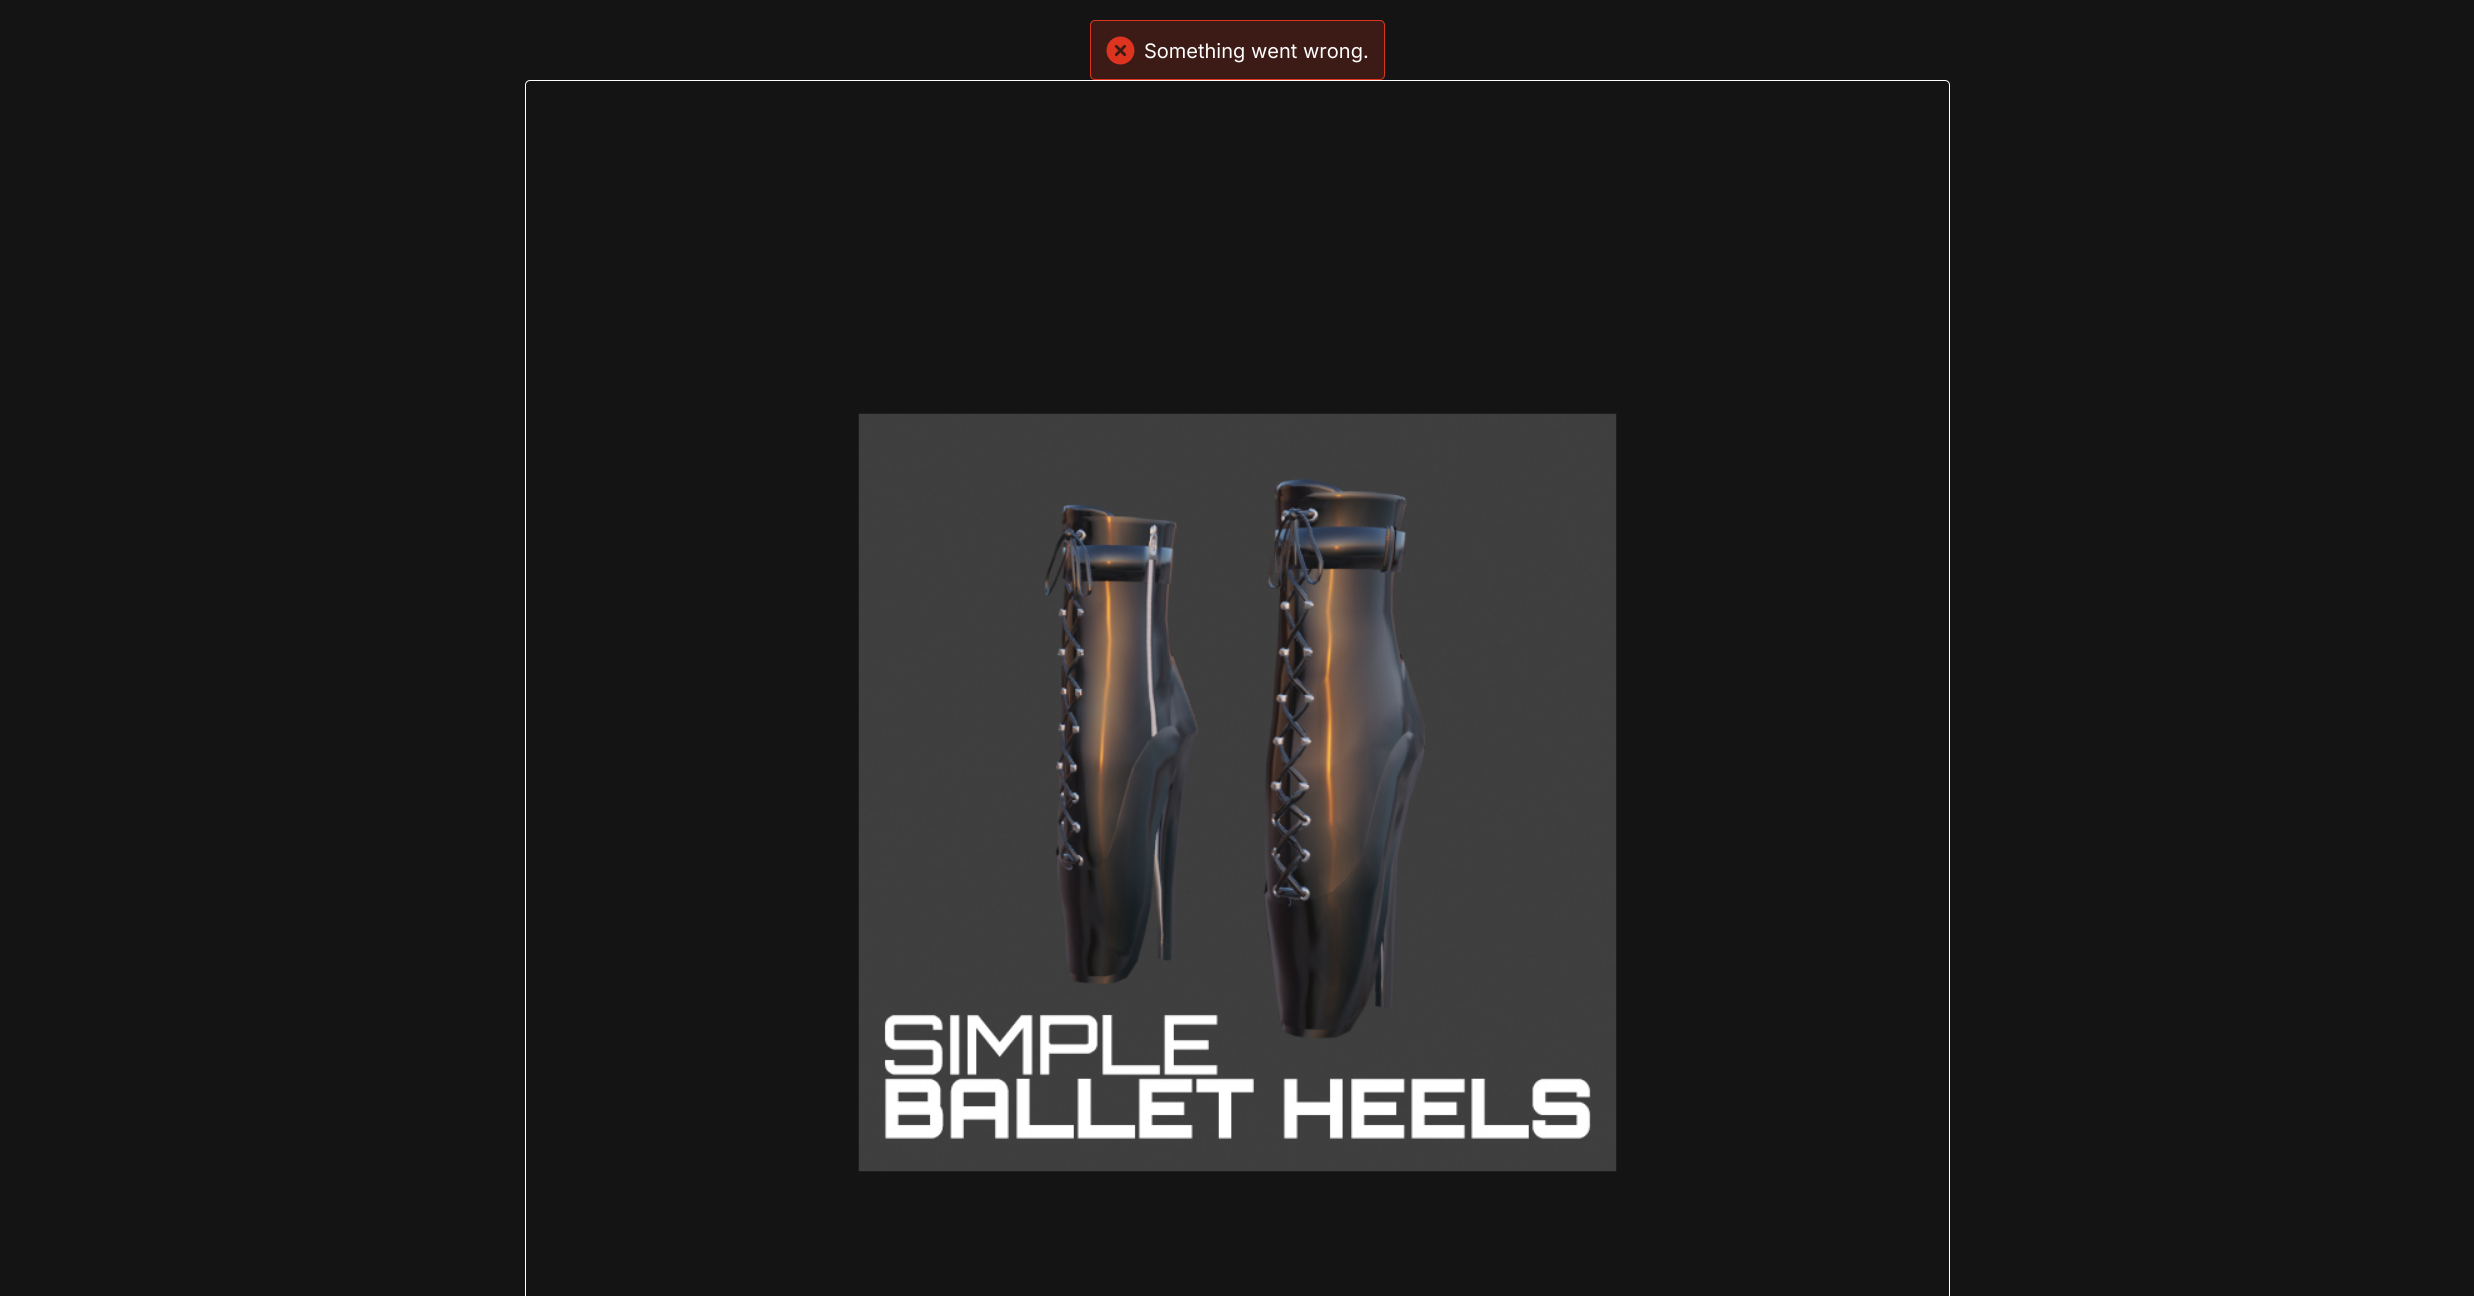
import math
import cairocffi as cairo

surface = cairo.ImageSurface(cairo.FORMAT_RGB24, 2474, 1296)
ctx = cairo.Context(surface)
options = cairo.FontOptions()
options.set_hint_metrics(cairo.HINT_METRICS_OFF)
options.set_hint_style(cairo.HINT_STYLE_NONE)
ctx.set_font_options(options)
ctx.set_miter_limit(4)


def rgb(r, g, b):
    ctx.set_source_rgb(r / 255, g / 255, b / 255)


def face(family, size, italic, bold):
    ctx.select_font_face(family, cairo.FONT_SLANT_ITALIC if italic else cairo.FONT_SLANT_NORMAL, cairo.FONT_WEIGHT_BOLD if bold else cairo.FONT_WEIGHT_NORMAL)
    ctx.set_font_size(size)


def label(x, y, s):
    ctx.move_to(x, y)
    ctx.show_text(s)


def rrect(x, y, w, h, r):
    ctx.new_sub_path()
    for i, (u, v) in enumerate([(x + w - r, y + h - r), (x + r, y + h - r), (x + r, y + r), (x + w - r, y + r)]):
        ctx.arc(u, v, r, i * math.pi / 2, (i + 1) * math.pi / 2)
    ctx.close_path()


def image(path, x, y, w, h):
    ctx.save()
    ctx.set_source_surface(cairo.ImageSurface.create_from_png(path), x, y)
    ctx.rectangle(x, y, w, h)
    ctx.fill()
    ctx.restore()


rgb(20, 20, 20)
ctx.paint()
rgb(60, 26, 22)
rrect(1090.5, 20.5, 294, 59, 4.5)
ctx.fill_preserve()
rgb(220, 52, 30)
ctx.set_line_width(1)
ctx.stroke()
image('image0.png', 1106, 36, 29, 29)
face('Inter', 20, 0, 0)
rgb(255, 255, 255)
label(1144, 58, 'Something went wrong.')
rrect(525.5, 80.5, 1424, 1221, 4.5)
ctx.stroke()
image('image1.png', 858, 413, 759, 759)
surface.write_to_png('render.png')
